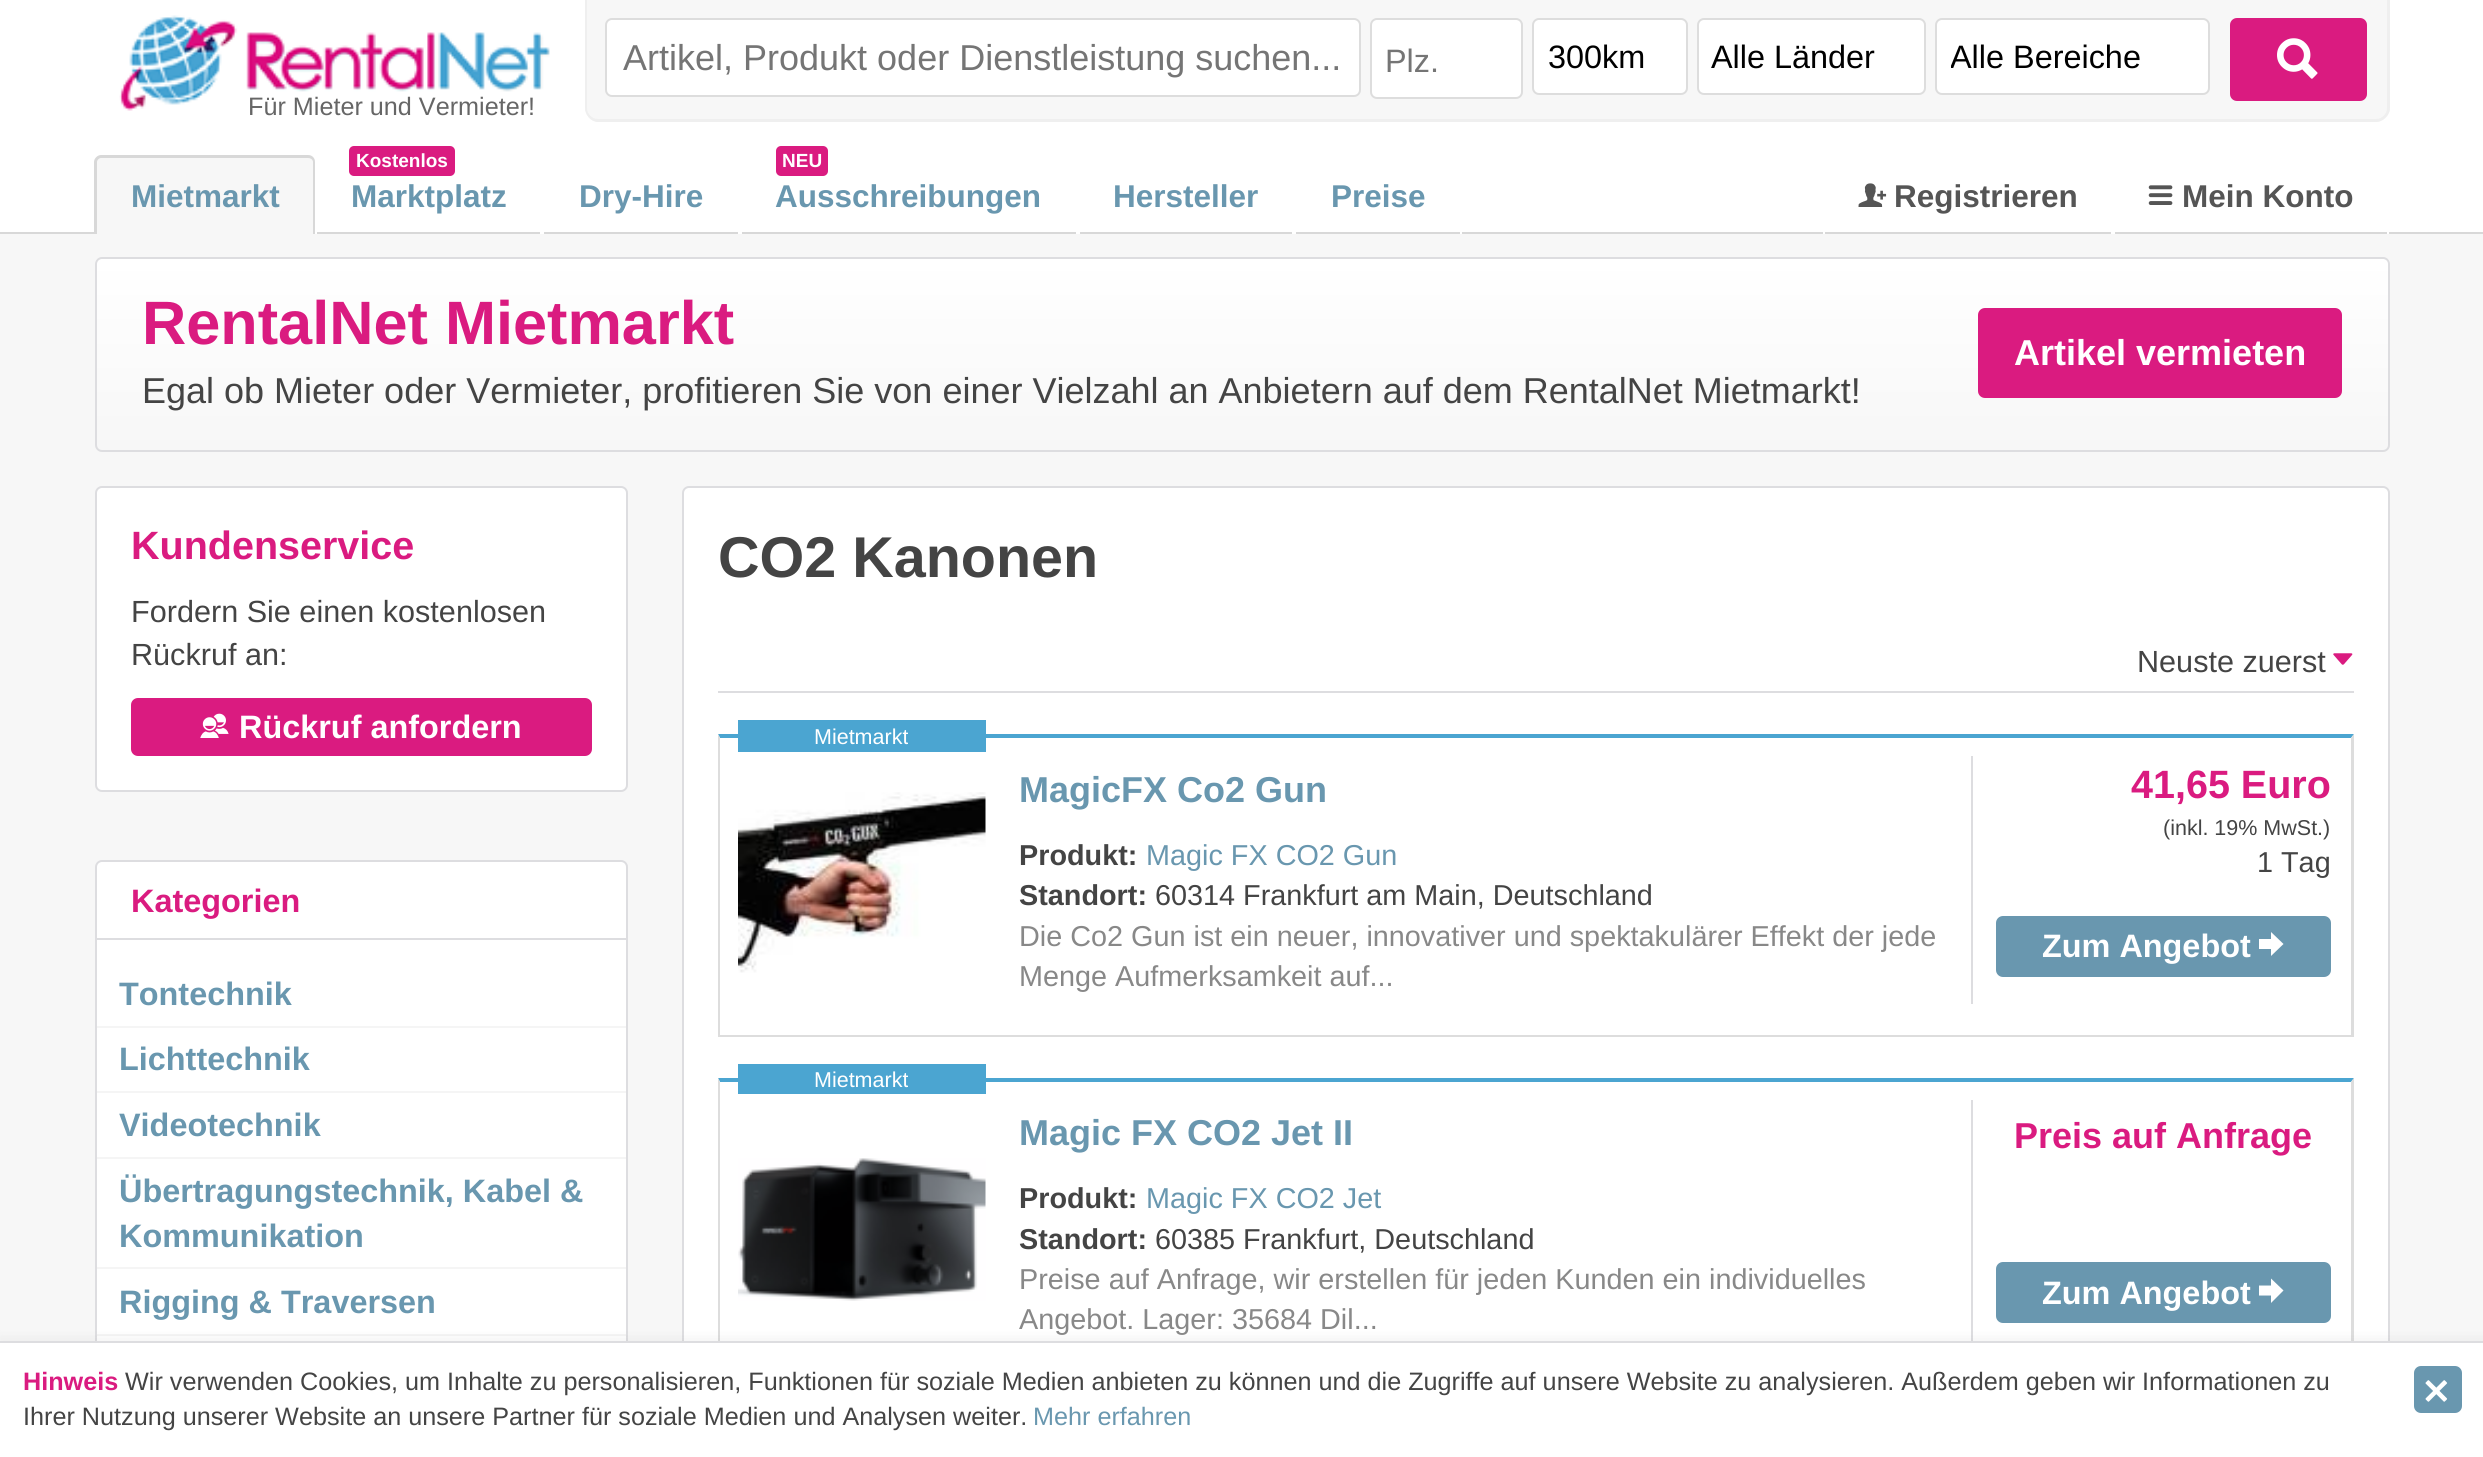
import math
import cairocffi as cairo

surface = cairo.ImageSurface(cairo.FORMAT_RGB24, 2483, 1457)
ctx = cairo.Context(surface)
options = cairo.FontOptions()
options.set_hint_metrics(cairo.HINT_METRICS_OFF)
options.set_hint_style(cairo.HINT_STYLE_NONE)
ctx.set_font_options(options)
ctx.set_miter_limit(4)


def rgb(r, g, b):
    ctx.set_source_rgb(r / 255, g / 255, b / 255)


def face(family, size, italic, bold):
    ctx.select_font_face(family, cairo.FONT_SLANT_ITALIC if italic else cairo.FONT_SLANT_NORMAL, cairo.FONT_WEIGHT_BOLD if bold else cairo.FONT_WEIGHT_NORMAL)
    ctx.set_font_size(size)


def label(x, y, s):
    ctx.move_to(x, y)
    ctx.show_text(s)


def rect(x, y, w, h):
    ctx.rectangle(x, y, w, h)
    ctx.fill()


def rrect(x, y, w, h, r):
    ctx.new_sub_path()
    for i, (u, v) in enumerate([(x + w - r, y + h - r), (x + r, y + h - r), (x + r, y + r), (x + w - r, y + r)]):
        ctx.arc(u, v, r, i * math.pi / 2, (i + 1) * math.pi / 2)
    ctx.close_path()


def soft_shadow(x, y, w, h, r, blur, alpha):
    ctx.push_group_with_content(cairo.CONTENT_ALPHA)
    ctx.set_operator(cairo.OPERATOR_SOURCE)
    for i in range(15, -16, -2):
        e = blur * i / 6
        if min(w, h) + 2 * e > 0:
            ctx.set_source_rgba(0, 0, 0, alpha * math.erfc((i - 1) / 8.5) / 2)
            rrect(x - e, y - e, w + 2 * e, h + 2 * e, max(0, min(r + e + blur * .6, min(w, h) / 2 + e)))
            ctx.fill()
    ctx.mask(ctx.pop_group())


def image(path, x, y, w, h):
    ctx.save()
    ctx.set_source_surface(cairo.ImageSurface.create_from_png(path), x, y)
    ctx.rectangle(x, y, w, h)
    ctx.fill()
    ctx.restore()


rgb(247, 247, 247)
ctx.paint()
rgb(255, 255, 255)
rect(0, 0, 2483, 232)
rgb(216, 216, 216)
rect(0, 232, 2483, 2)
rgb(247, 247, 247)
ctx.new_path()
ctx.move_to(585, 0)
ctx.line_to(2390, 0)
ctx.line_to(2390, 108)
ctx.curve_to(2390, 115.5, 2383.5, 122, 2376, 122)
ctx.line_to(599, 122)
ctx.curve_to(591.5, 122, 585, 115.5, 585, 108)
ctx.close_path()
ctx.fill()
rgb(239, 239, 239)
ctx.set_fill_rule(cairo.FILL_RULE_EVEN_ODD)
ctx.new_path()
ctx.move_to(585, 0)
ctx.line_to(2390, 0)
ctx.line_to(2390, 108)
ctx.curve_to(2390, 115, 2383, 122, 2376, 122)
ctx.line_to(598, 122)
ctx.curve_to(591, 122, 585, 115, 585, 108)
ctx.close_path()
ctx.move_to(587, 0)
ctx.line_to(2387, 0)
ctx.line_to(2387, 108)
ctx.curve_to(2387, 114, 2382, 119, 2376, 119)
ctx.line_to(598, 119)
ctx.curve_to(592, 119, 587, 114, 587, 108)
ctx.close_path()
ctx.fill()
rgb(255, 255, 255)
rrect(606, 19, 754, 77, 6)
ctx.fill_preserve()
rgb(221, 221, 221)
ctx.stroke()
face('Liberation Sans', 36, 0, 0)
rgb(117, 117, 117)
label(623, 70, 'Artikel, Produkt oder Dienstleistung suchen...')
rgb(255, 255, 255)
rrect(1371, 19, 151, 79, 6)
ctx.fill_preserve()
rgb(221, 221, 221)
ctx.stroke()
face('Liberation Sans', 32.4, 0, 0)
rgb(117, 117, 117)
label(1385, 72, 'Plz.')
rgb(255, 255, 255)
rrect(1533, 19, 154, 75, 6)
ctx.fill_preserve()
rgb(221, 221, 221)
ctx.stroke()
rgb(0, 0, 0)
label(1548, 68, '300km')
rgb(255, 255, 255)
rrect(1698, 19, 227, 75, 6)
ctx.fill_preserve()
rgb(221, 221, 221)
ctx.stroke()
rgb(0, 0, 0)
label(1711, 68, 'Alle Länder')
rgb(255, 255, 255)
rrect(1936, 19, 273, 75, 6)
ctx.fill_preserve()
rgb(221, 221, 221)
ctx.stroke()
ctx.save()
ctx.set_fill_rule(cairo.FILL_RULE_WINDING)
ctx.rectangle(1951, 38, 243, 36)
ctx.clip()
rgb(0, 0, 0)
label(1950, 68, 'Alle Bereiche')
ctx.restore()
rgb(218, 27, 128)
rrect(2230, 18, 137, 83, 7)
ctx.fill()
image('image0.png', 2277, 38, 41, 41)
image('image1.png', 119, 15, 431, 96)
face('Liberation Sans', 25.2, 0, 0)
rgb(102, 102, 102)
label(248, 115, 'Für Mieter und Vermieter!')
rgb(247, 247, 247)
ctx.new_path()
ctx.move_to(102, 155)
ctx.line_to(308, 155)
ctx.curve_to(312, 155, 315, 158, 315, 162)
ctx.line_to(315, 234)
ctx.line_to(95, 234)
ctx.line_to(95, 162)
ctx.curve_to(95, 158, 98, 155, 102, 155)
ctx.close_path()
ctx.fill()
rgb(216, 216, 216)
ctx.new_path()
ctx.move_to(101, 155)
ctx.line_to(308, 155)
ctx.curve_to(312, 155, 315, 158, 315, 162)
ctx.line_to(315, 234)
ctx.line_to(94, 234)
ctx.line_to(94, 162)
ctx.curve_to(94, 158, 98, 155, 101, 155)
ctx.close_path()
ctx.move_to(101, 158)
ctx.line_to(308, 158)
ctx.curve_to(311, 158, 313, 160, 313, 162)
ctx.line_to(313, 234)
ctx.line_to(97, 234)
ctx.line_to(97, 162)
ctx.curve_to(97, 160, 99, 158, 101, 158)
ctx.close_path()
ctx.fill()
face('Liberation Sans', 31.5, 0, 1)
rgb(105, 151, 175)
label(131, 207, 'Mietmarkt')
rgb(255, 255, 255)
rect(540, 232, 4, 2)
rect(315, 232, 2, 2)
rgb(218, 27, 128)
rrect(349, 146, 106, 30, 5)
ctx.fill()
face('Liberation Sans', 19, 0, 1)
rgb(255, 255, 255)
label(356, 167, 'Kostenlos')
face('Liberation Sans', 31.5, 0, 1)
rgb(105, 151, 175)
label(351, 207, 'Marktplatz')
rgb(255, 255, 255)
rect(738, 232, 4, 2)
rgb(105, 151, 175)
label(579, 207, 'Dry-Hire')
rgb(255, 255, 255)
rect(1076, 232, 4, 2)
rgb(218, 27, 128)
rrect(776, 146, 52, 30, 5)
ctx.fill()
face('Liberation Sans', 19, 0, 1)
rgb(255, 255, 255)
label(782, 167, 'NEU')
face('Liberation Sans', 31.5, 0, 1)
rgb(105, 151, 175)
label(775, 207, 'Ausschreibungen')
rgb(255, 255, 255)
rect(1292, 232, 4, 2)
rgb(105, 151, 175)
label(1113, 207, 'Hersteller')
rgb(255, 255, 255)
rect(1460, 232, 2, 2)
rgb(105, 151, 175)
label(1331, 207, 'Preise')
rgb(255, 255, 255)
rect(1823, 232, 2, 2)
image('image2.png', 1858, 183, 29, 24)
rgb(85, 85, 85)
label(1894, 207, 'Registrieren')
rgb(255, 255, 255)
rect(2387, 232, 2, 2)
rect(2111, 232, 4, 2)
image('image3.png', 2148, 185, 25, 20)
rgb(85, 85, 85)
label(2182, 207, 'Mein Konto')
ctx.save()
ctx.set_fill_rule(cairo.FILL_RULE_WINDING)
rrect(95, 257, 2295, 195, 7)
ctx.clip()
gradient = cairo.LinearGradient(1242, 259, 1242, 450)
gradient.add_color_stop_rgba(0, 1, 1, 1, 1)
gradient.add_color_stop_rgba(1, 0.969, 0.969, 0.969, 1)
ctx.set_source(gradient)
rect(95, 259, 2295, 191)
ctx.restore()
rrect(96, 258, 2293, 193, 6)
rgb(221, 221, 224)
ctx.stroke()
face('Liberation Sans', 61.25, 0, 1)
rgb(218, 27, 128)
label(142, 344, 'RentalNet Mietmarkt')
rrect(1978, 308, 364, 90, 7)
ctx.fill()
face('Liberation Sans', 36, 0, 1)
rgb(255, 255, 255)
label(2014, 365, 'Artikel vermieten')
face('Liberation Sans', 36, 0, 0)
rgb(68, 68, 68)
label(142, 403, 'Egal ob Mieter oder Vermieter, profitieren Sie von einer Vielzahl an Anbietern auf dem RentalNet Mietmarkt!')
rgb(255, 255, 255)
rrect(96, 487, 531, 304, 6)
ctx.fill_preserve()
rgb(221, 221, 224)
ctx.stroke()
face('Liberation Sans', 39.5, 0, 1)
rgb(218, 27, 128)
label(131, 559, 'Kundenservice')
face('Liberation Sans', 30.6, 0, 0)
rgb(68, 68, 68)
label(131, 622, 'Fordern Sie einen kostenlosen')
label(131, 665, 'Rückruf an:')
rgb(218, 27, 128)
rrect(131, 698, 461, 58, 7)
ctx.fill()
image('image4.png', 200, 713, 29, 25)
face('Liberation Sans', 32.4, 0, 1)
rgb(255, 255, 255)
label(239, 738, 'Rückruf anfordern')
rrect(96, 861, 531, 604, 6)
ctx.fill_preserve()
rgb(221, 221, 224)
ctx.stroke()
rect(97, 938, 529, 2)
rgb(218, 27, 128)
label(131, 912, 'Kategorien')
rgb(245, 245, 245)
rect(97, 1026, 529, 2)
rgb(105, 151, 175)
label(119, 1005, 'Tontechnik')
rgb(245, 245, 245)
rect(97, 1091, 529, 2)
rgb(105, 151, 175)
label(119, 1070, 'Lichttechnik')
rgb(245, 245, 245)
rect(97, 1157, 529, 2)
rgb(105, 151, 175)
label(119, 1136, 'Videotechnik')
rgb(245, 245, 245)
rect(97, 1267, 529, 2)
rgb(105, 151, 175)
label(119, 1202, 'Übertragungstechnik, Kabel &')
label(119, 1247, 'Kommunikation')
rgb(245, 245, 245)
rect(97, 1334, 529, 2)
rgb(105, 151, 175)
label(119, 1313, 'Rigging & Traversen')
rgb(255, 255, 255)
rrect(683, 487, 1706, 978, 6)
ctx.fill_preserve()
rgb(221, 221, 224)
ctx.stroke()
face('Liberation Sans', 57.5, 0, 1)
rgb(68, 68, 68)
label(718, 577, 'CO2 Kanonen')
rgb(221, 221, 224)
rect(718, 691, 1636, 2)
face('Liberation Sans', 30.6, 0, 0)
rgb(68, 68, 68)
label(2137, 672, 'Neuste zuerst')
image('image5.png', 2333, 653, 20, 12)
rgb(75, 165, 209)
ctx.set_fill_rule(cairo.FILL_RULE_WINDING)
ctx.new_path()
ctx.move_to(718, 734)
ctx.line_to(2354, 734)
ctx.line_to(2351, 738)
ctx.line_to(720, 738)
ctx.close_path()
ctx.fill()
rgb(221, 221, 221)
ctx.new_path()
ctx.move_to(2354, 734)
ctx.line_to(2354, 1037)
ctx.line_to(2351, 1035)
ctx.line_to(2351, 738)
ctx.close_path()
ctx.fill()
rect(718, 1035, 1636, 2)
ctx.new_path()
ctx.move_to(718, 1037)
ctx.line_to(718, 734)
ctx.line_to(720, 738)
ctx.line_to(720, 1035)
ctx.close_path()
ctx.fill()
rgb(75, 165, 209)
rect(738, 720, 248, 32)
face('Liberation Sans', 21.5, 0, 0)
rgb(255, 255, 255)
label(814, 744, 'Mietmarkt')
image('image6.png', 738, 792, 248, 181)
face('Liberation Sans', 36, 0, 1)
rgb(105, 151, 175)
label(1019, 802, 'MagicFX Co2 Gun')
face('Liberation Sans', 28.8, 0, 1)
rgb(68, 68, 68)
label(1019, 865, 'Produkt:')
face('Liberation Sans', 28.8, 0, 0)
rgb(105, 151, 175)
label(1146, 865, 'Magic FX CO2 Gun')
face('Liberation Sans', 28.8, 0, 1)
rgb(68, 68, 68)
label(1019, 905, 'Standort:')
face('Liberation Sans', 28.8, 0, 0)
label(1155, 905, '60314 Frankfurt am Main, Deutschland')
rgb(136, 136, 136)
label(1019, 946, 'Die Co2 Gun ist ein neuer, innovativer und spektakulärer Effekt der jede')
label(1019, 986, 'Menge Aufmerksamkeit auf...')
rgb(221, 221, 224)
rect(1971, 756, 2, 248)
face('Liberation Sans', 39.5, 0, 1)
rgb(218, 27, 128)
label(2131, 798, '41,65 Euro')
face('Liberation Sans', 21.5, 0, 0)
rgb(68, 68, 68)
label(2163, 835, '(inkl. 19% MwSt.)')
face('Liberation Sans', 28.8, 0, 0)
label(2257, 872, '1 Tag')
rgb(105, 151, 175)
rrect(1996, 916, 335, 61, 7)
ctx.fill()
face('Liberation Sans', 32.4, 0, 1)
rgb(255, 255, 255)
label(2042, 957, 'Zum Angebot')
ctx.new_path()
ctx.move_to(2283.5, 944)
ctx.line_to(2271, 956)
ctx.line_to(2271, 949)
ctx.line_to(2259, 949)
ctx.line_to(2259, 939)
ctx.line_to(2271, 939)
ctx.line_to(2271, 932)
ctx.close_path()
ctx.fill()
rgb(75, 165, 209)
ctx.new_path()
ctx.move_to(718, 1078)
ctx.line_to(2354, 1078)
ctx.line_to(2351, 1082)
ctx.line_to(720, 1082)
ctx.close_path()
ctx.fill()
rgb(221, 221, 221)
ctx.new_path()
ctx.move_to(2354, 1078)
ctx.line_to(2354, 1382)
ctx.line_to(2351, 1379)
ctx.line_to(2351, 1082)
ctx.close_path()
ctx.fill()
ctx.new_path()
ctx.move_to(718, 1382)
ctx.line_to(718, 1078)
ctx.line_to(720, 1082)
ctx.line_to(720, 1379)
ctx.close_path()
ctx.fill()
rgb(75, 165, 209)
rect(738, 1064, 248, 30)
face('Liberation Sans', 21.5, 0, 0)
rgb(255, 255, 255)
label(814, 1087, 'Mietmarkt')
image('image7.png', 738, 1158, 248, 143)
face('Liberation Sans', 36, 0, 1)
rgb(105, 151, 175)
label(1019, 1145, 'Magic FX CO2 Jet II')
face('Liberation Sans', 28.8, 0, 1)
rgb(68, 68, 68)
label(1019, 1208, 'Produkt:')
face('Liberation Sans', 28.8, 0, 0)
rgb(105, 151, 175)
label(1146, 1208, 'Magic FX CO2 Jet')
face('Liberation Sans', 28.8, 0, 1)
rgb(68, 68, 68)
label(1019, 1249, 'Standort:')
face('Liberation Sans', 28.8, 0, 0)
label(1155, 1249, '60385 Frankfurt, Deutschland')
rgb(136, 136, 136)
label(1019, 1289, 'Preise auf Anfrage, wir erstellen für jeden Kunden ein individuelles')
label(1019, 1329, 'Angebot. Lager: 35684 Dil...')
rgb(221, 221, 224)
rect(1971, 1100, 2, 248)
face('Liberation Sans', 36, 0, 1)
rgb(218, 27, 128)
label(2014, 1148, 'Preis auf Anfrage')
rgb(105, 151, 175)
rrect(1996, 1262, 335, 61, 7)
ctx.fill()
face('Liberation Sans', 32.4, 0, 1)
rgb(255, 255, 255)
label(2042, 1304, 'Zum Angebot')
ctx.new_path()
ctx.move_to(2283.5, 1290.5)
ctx.line_to(2271, 1303)
ctx.line_to(2271, 1295.5)
ctx.line_to(2259, 1295.5)
ctx.line_to(2259, 1285.5)
ctx.line_to(2271, 1285.5)
ctx.line_to(2271, 1278.5)
ctx.close_path()
ctx.fill()
rgb(150, 150, 150)
soft_shadow(0, 1337, 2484, 117, 0, 4.5, 0.1)
rgb(255, 255, 255)
rect(0, 1343, 2483, 114)
rgb(221, 221, 224)
rect(0, 1341, 2483, 2)
face('Liberation Sans', 25.2, 0, 1)
rgb(218, 27, 128)
label(23, 1390, 'Hinweis')
face('Liberation Sans', 25.2, 0, 0)
rgb(68, 68, 68)
label(125, 1390, 'Wir verwenden Cookies, um Inhalte zu personalisieren, Funktionen für soziale Medien anbieten zu können und die Zugriffe auf unsere Website zu analysieren. Außerdem geben wir Informationen zu')
label(23, 1425, 'Ihrer Nutzung unserer Website an unsere Partner für soziale Medien und Analysen weiter.')
rgb(105, 151, 175)
label(1033, 1425, 'Mehr erfahren')
rrect(2414, 1366, 48, 47, 7)
ctx.fill()
image('image8.png', 2425, 1380, 23, 22)
surface.write_to_png('render.png')
